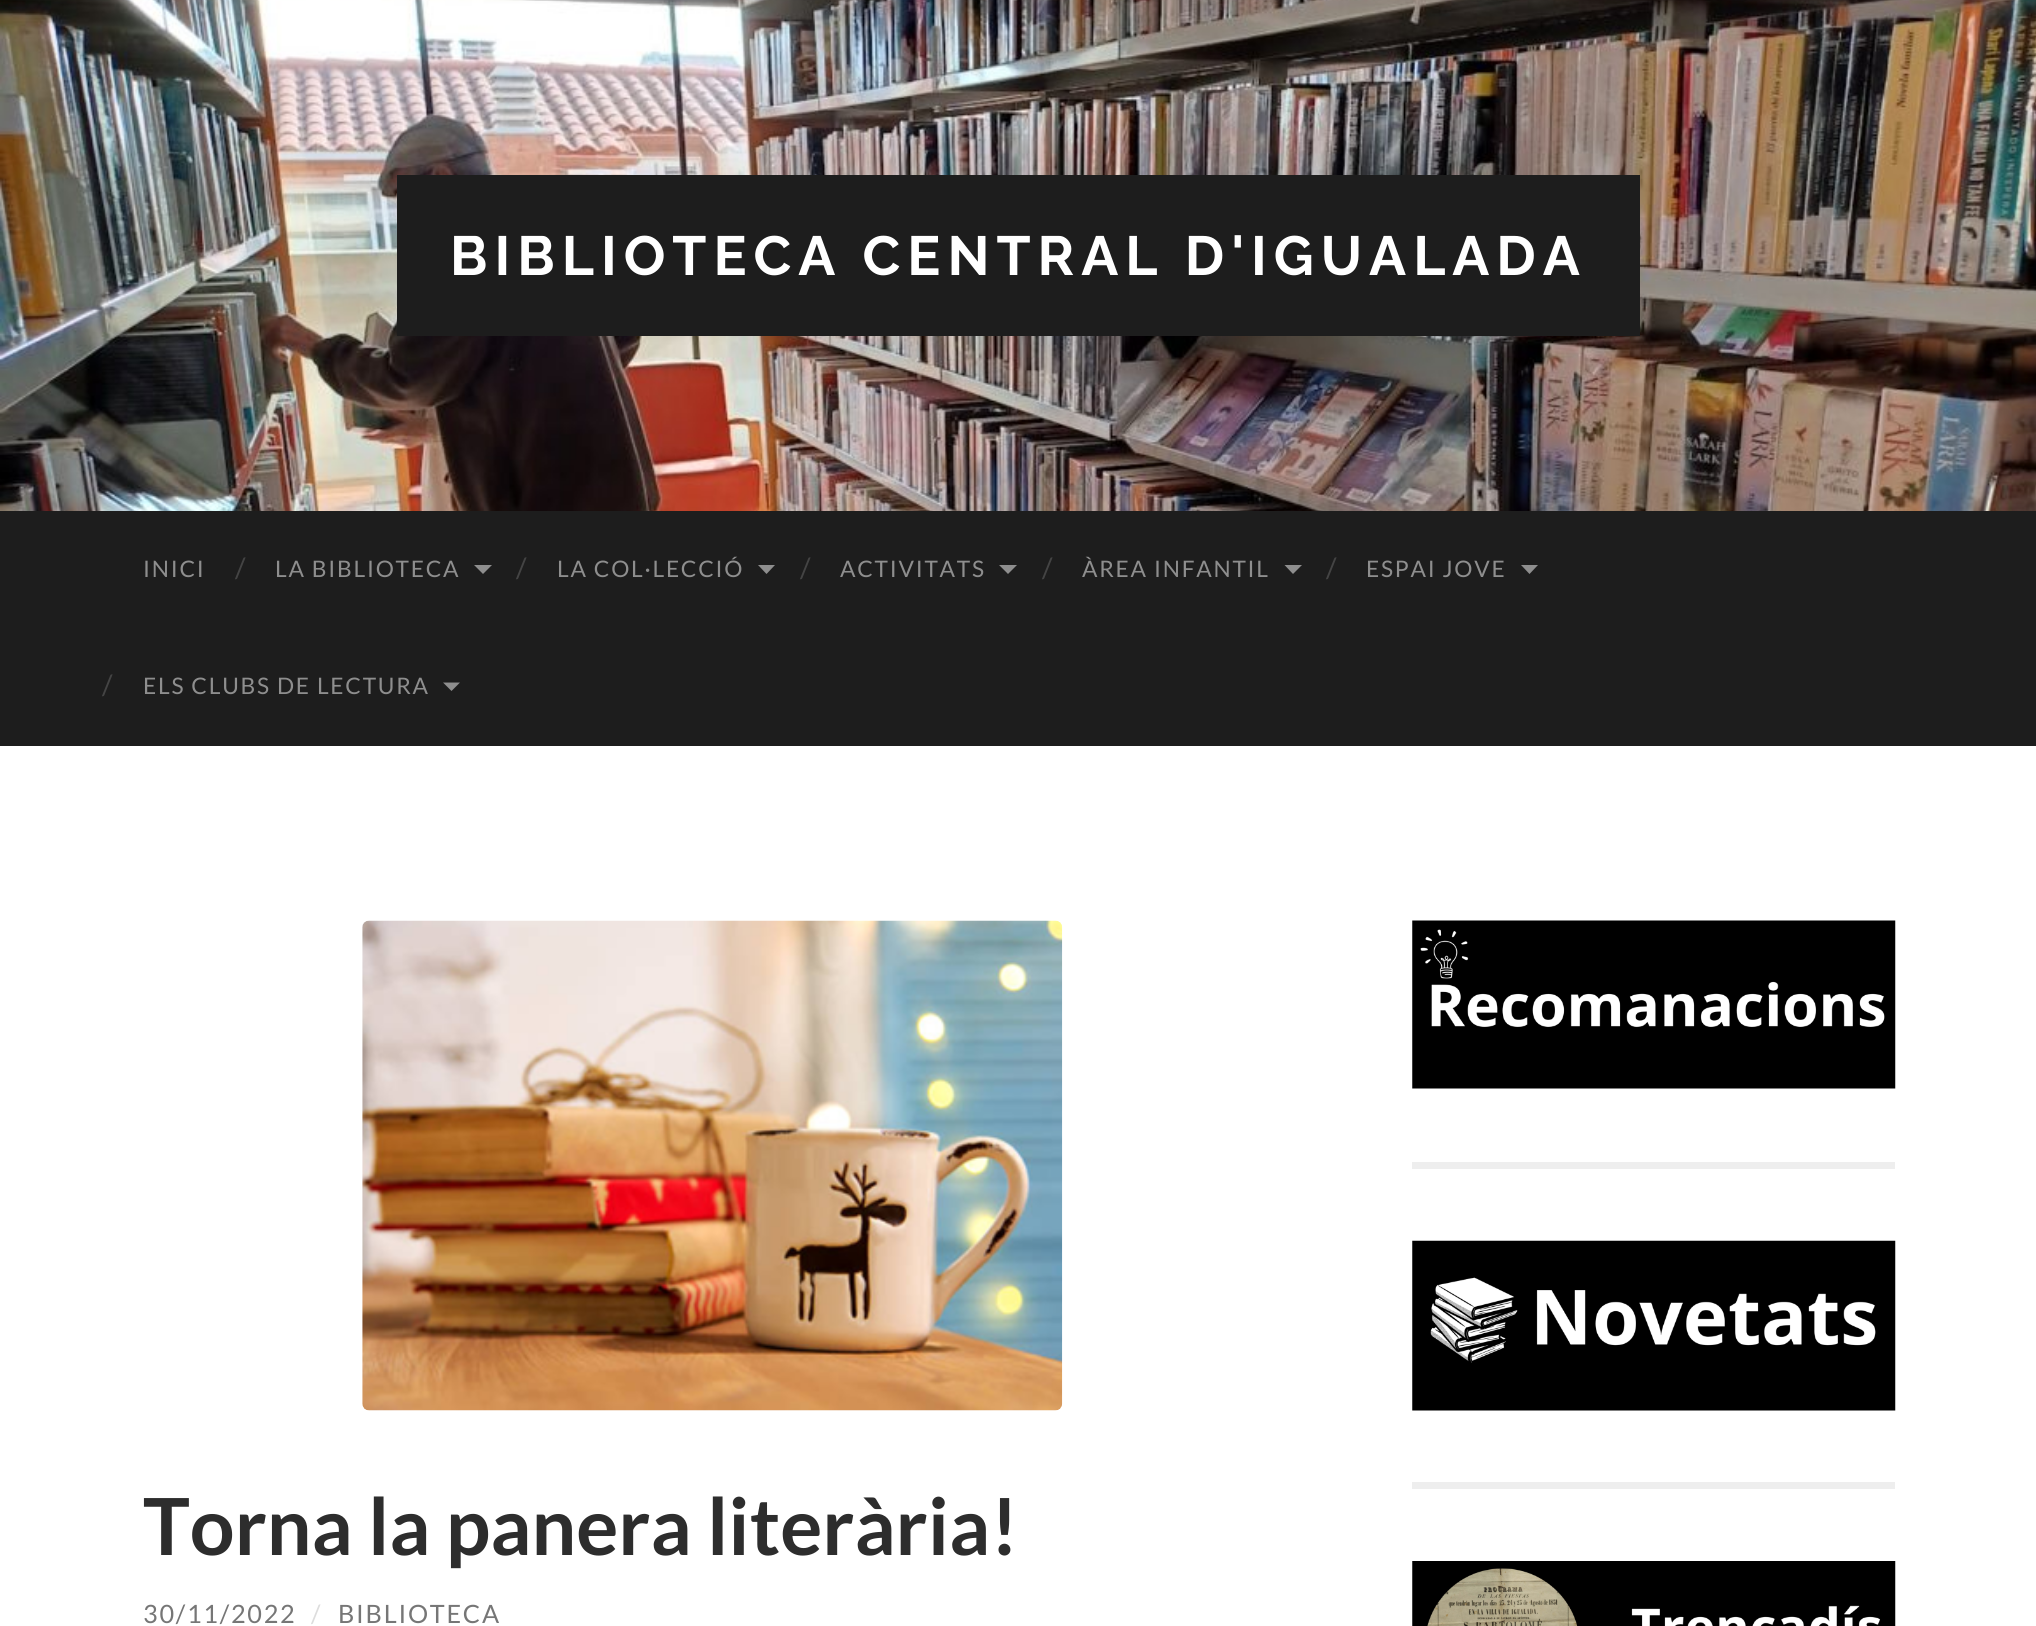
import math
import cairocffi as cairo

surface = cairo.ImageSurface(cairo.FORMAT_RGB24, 2036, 1626)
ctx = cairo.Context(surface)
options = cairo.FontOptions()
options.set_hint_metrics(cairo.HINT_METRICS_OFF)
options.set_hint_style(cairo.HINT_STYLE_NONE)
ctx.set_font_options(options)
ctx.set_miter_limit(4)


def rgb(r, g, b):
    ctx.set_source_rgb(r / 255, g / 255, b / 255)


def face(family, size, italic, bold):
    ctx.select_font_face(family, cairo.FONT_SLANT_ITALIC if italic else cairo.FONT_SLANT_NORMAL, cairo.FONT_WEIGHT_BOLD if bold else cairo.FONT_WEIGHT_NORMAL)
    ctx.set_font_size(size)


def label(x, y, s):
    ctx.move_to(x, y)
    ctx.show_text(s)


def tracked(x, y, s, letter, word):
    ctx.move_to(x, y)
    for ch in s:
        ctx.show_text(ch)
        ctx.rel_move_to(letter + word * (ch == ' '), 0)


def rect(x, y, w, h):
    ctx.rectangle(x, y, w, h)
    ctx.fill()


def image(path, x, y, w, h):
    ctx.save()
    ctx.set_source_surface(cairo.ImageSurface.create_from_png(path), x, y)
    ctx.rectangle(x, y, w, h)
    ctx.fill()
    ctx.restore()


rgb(255, 255, 255)
ctx.paint()
image('image0.png', 0, 0, 2036, 511)
rgb(29, 29, 29)
rect(397, 175, 1243, 161)
face('Raleway Thin', 55.1, 0, 0)
rgb(255, 255, 255)
tracked(450, 275, 'BIBLIOTECA CENTRAL D\'IGUALADA', 7, 0)
rgb(29, 29, 29)
rect(0, 511, 2036, 235)
face('Lato', 22.75, 0, 0)
rgb(142, 142, 142)
tracked(143, 577, 'INICI', 1.75, 0)
face('Lato', 28, 0, 0)
rgb(68, 68, 68)
label(235, 578, '/')
face('Lato', 22.75, 0, 0)
rgb(142, 142, 142)
tracked(275, 577, 'LA BIBLIOTECA', 1.75, 0)
ctx.new_path()
ctx.move_to(474, 565)
ctx.line_to(492, 565)
ctx.line_to(483, 574)
ctx.close_path()
ctx.fill()
face('Lato', 28, 0, 0)
rgb(68, 68, 68)
label(516, 578, '/')
face('Lato', 22.75, 0, 0)
rgb(142, 142, 142)
tracked(557, 577, 'LA COL·LECCIÓ', 1.75, 0)
ctx.new_path()
ctx.move_to(758, 565)
ctx.line_to(775, 565)
ctx.line_to(766.5, 574)
ctx.close_path()
ctx.fill()
face('Lato', 28, 0, 0)
rgb(68, 68, 68)
label(800, 578, '/')
face('Lato', 22.75, 0, 0)
rgb(142, 142, 142)
tracked(840, 577, 'ACTIVITATS', 1.75, 0)
ctx.new_path()
ctx.move_to(999, 565)
ctx.line_to(1017, 565)
ctx.line_to(1008, 574)
ctx.close_path()
ctx.fill()
face('Lato', 28, 0, 0)
rgb(68, 68, 68)
label(1042, 578, '/')
face('Lato', 22.75, 0, 0)
rgb(142, 142, 142)
tracked(1082, 577, 'ÀREA INFANTIL', 1.75, 0)
ctx.new_path()
ctx.move_to(1284.5, 565)
ctx.line_to(1302, 565)
ctx.line_to(1293, 574)
ctx.close_path()
ctx.fill()
face('Lato', 28, 0, 0)
rgb(68, 68, 68)
label(1326, 578, '/')
face('Lato', 22.75, 0, 0)
rgb(142, 142, 142)
tracked(1366, 577, 'ESPAI JOVE', 1.75, 0)
ctx.new_path()
ctx.move_to(1521, 565)
ctx.line_to(1538, 565)
ctx.line_to(1529.5, 574)
ctx.close_path()
ctx.fill()
face('Lato', 28, 0, 0)
rgb(68, 68, 68)
label(102, 695, '/')
face('Lato', 22.75, 0, 0)
rgb(142, 142, 142)
tracked(143, 694, 'ELS CLUBS DE LECTURA', 1.75, 0)
ctx.new_path()
ctx.move_to(443, 682.5)
ctx.line_to(460, 682.5)
ctx.line_to(451.5, 691)
ctx.close_path()
ctx.fill()
image('image1.png', 362, 920, 701, 491)
face('Lato', 78.75, 0, 1)
rgb(45, 45, 45)
label(143, 1555, 'Torna la panera literària!')
face('Lato', 25.25, 0, 0)
rgb(118, 118, 118)
tracked(143, 1623, '30/11/2022', 1.75, 0)
rgb(221, 221, 221)
tracked(311, 1623, '/', 1.75, 0)
rgb(118, 118, 118)
tracked(338, 1623, 'BIBLIOTECA', 1.75, 0)
rgb(238, 238, 238)
rect(1412, 1162, 483, 7)
image('image2.png', 1412, 920, 484, 169)
rect(1412, 1482, 483, 7)
image('image3.png', 1412, 1240, 484, 171)
image('image4.png', 1412, 1561, 484, 65)
surface.write_to_png('render.png')
